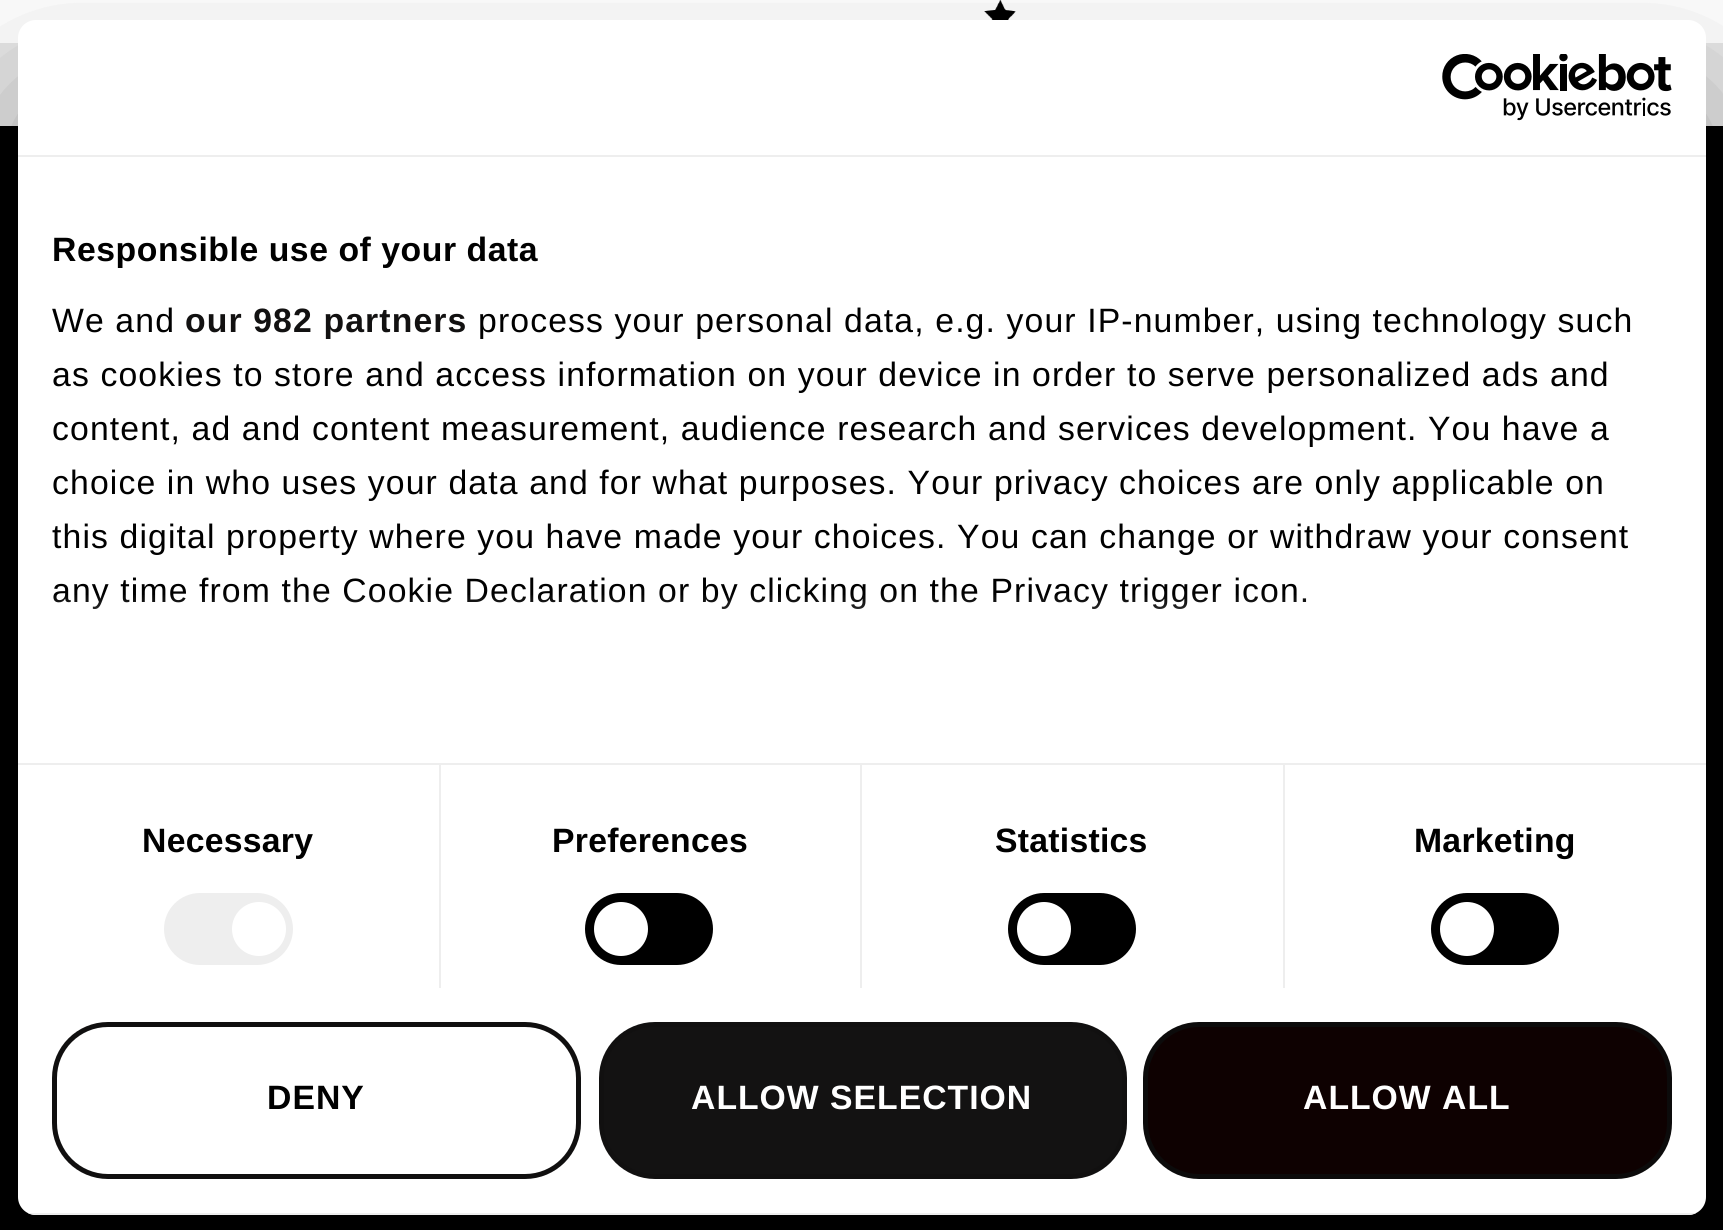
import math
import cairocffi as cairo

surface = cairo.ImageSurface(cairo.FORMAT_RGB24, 1723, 1230)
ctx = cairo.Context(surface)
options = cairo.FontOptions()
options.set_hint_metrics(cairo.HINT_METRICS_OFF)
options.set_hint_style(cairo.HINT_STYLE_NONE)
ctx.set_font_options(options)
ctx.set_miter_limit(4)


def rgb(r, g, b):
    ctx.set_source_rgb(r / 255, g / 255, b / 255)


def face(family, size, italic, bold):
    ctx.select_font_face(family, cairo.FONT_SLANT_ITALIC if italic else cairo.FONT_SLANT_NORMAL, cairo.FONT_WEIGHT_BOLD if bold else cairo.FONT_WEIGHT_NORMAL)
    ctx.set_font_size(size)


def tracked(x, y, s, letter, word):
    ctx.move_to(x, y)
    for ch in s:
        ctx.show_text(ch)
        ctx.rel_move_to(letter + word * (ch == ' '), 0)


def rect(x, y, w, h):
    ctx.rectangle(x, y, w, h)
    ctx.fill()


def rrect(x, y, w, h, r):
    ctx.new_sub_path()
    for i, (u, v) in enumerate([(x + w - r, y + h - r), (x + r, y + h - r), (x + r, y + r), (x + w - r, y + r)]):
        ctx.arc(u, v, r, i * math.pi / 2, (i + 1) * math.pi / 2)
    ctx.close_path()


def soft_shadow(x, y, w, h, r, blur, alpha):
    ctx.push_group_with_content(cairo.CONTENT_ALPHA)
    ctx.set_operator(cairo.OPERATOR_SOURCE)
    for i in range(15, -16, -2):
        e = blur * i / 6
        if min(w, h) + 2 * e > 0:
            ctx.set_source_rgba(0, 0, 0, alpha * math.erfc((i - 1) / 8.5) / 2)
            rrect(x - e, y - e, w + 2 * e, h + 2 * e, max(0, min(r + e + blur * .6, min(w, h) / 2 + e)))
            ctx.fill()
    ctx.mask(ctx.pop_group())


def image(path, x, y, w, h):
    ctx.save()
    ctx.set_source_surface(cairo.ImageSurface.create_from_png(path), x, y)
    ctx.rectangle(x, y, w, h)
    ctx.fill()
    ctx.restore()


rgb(255, 255, 255)
ctx.paint()
image('image0.png', 984, 0, 32, 20)
rgb(0, 0, 0)
rect(0, 126, 1723, 1104)
rgb(230, 230, 230)
rect(0, 43, 1723, 83)
rgb(0, 0, 0)
soft_shadow(18, 92, 1688, 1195, 18, 76.5, 0.3)
rgb(255, 255, 255)
rrect(18, 20, 1688, 1195, 18)
ctx.fill()
rgb(238, 238, 238)
rect(18, 155, 1688, 2)
image('image1.png', 1442, 54, 230, 67)
rect(18, 763, 1688, 2)
face('Liberation Sans', 33.75, 0, 1)
rgb(0, 0, 0)
tracked(52, 261, 'Responsible use of your data', 0.55, 0)
face('Liberation Sans', 33.75, 0, 0)
tracked(52, 332, 'We and', 1.12, 0)
face('Liberation Sans', 33.75, 0, 1)
rgb(18, 17, 17)
tracked(185, 332, 'our 982 partners', 1.12, 0)
face('Liberation Sans', 33.75, 0, 0)
rgb(0, 0, 0)
tracked(478, 332, 'process your personal data, e.g. your IP-number, using technology such', 1.12, 0)
tracked(52, 386, 'as cookies to store and access information on your device in order to serve personalized ads and', 1.12, 0)
tracked(52, 440, 'content, ad and content measurement, audience research and services development. You have a', 1.12, 0)
tracked(52, 494, 'choice in who uses your data and for what purposes. Your privacy choices are only applicable on', 1.12, 0)
tracked(52, 548, 'this digital property where you have made your choices. You can change or withdraw your consent', 1.12, 0)
tracked(52, 602, 'any time from the Cookie Declaration or by clicking on the Privacy trigger icon.', 1.12, 0)
gradient = cairo.LinearGradient(847, 762, 847, 593)
gradient.add_color_stop_rgba(0, 1, 1, 1, 1)
gradient.add_color_stop_rgba(0.5, 1, 1, 1, 0.8)
gradient.add_color_stop_rgba(1, 1, 1, 1, 0)
ctx.set_source(gradient)
rect(53, 595, 1254, 14)
rgb(238, 238, 238)
rect(439, 765, 2, 223)
face('Liberation Sans', 33.75, 0, 1)
rgb(0, 0, 0)
tracked(142, 852, 'Necessary', 0.25, 0)
rgb(238, 238, 238)
rrect(164, 893, 129, 72, 36)
ctx.fill()
rgb(255, 255, 255)
ctx.arc(259, 929, 27, 0, 2 * math.pi)
ctx.fill()
rgb(238, 238, 238)
rect(860, 765, 2, 223)
rgb(0, 0, 0)
tracked(552, 852, 'Preferences', 0.25, 0)
rrect(585, 893, 128, 72, 36)
ctx.fill()
rgb(255, 255, 255)
ctx.arc(621, 929, 27, 0, 2 * math.pi)
ctx.fill()
rgb(238, 238, 238)
rect(1283, 765, 2, 223)
rgb(0, 0, 0)
tracked(995, 852, 'Statistics', 0.25, 0)
rrect(1008, 893, 128, 72, 36)
ctx.fill()
rgb(255, 255, 255)
ctx.arc(1044, 929, 27, 0, 2 * math.pi)
ctx.fill()
rgb(0, 0, 0)
tracked(1414, 852, 'Marketing', 0.25, 0)
rrect(1431, 893, 128, 72, 36)
ctx.fill()
rgb(255, 255, 255)
ctx.arc(1467, 929, 27, 0, 2 * math.pi)
ctx.fill()
ctx.save()
rrect(18, 20, 1688, 1195, 18)
ctx.clip()
rgb(238, 238, 238)
rect(28, 1213, 1668, 2)
ctx.restore()
rrect(54.5, 1024.5, 524, 152, 53.5)
rgb(16, 15, 15)
ctx.set_line_width(5)
ctx.stroke()
rgb(0, 0, 0)
tracked(267, 1109, 'DENY', 1, 0)
rgb(19, 18, 18)
rrect(601.5, 1024.5, 523, 152, 53.5)
ctx.fill_preserve()
rgb(17, 16, 16)
ctx.stroke()
rgb(255, 255, 255)
tracked(691, 1109, 'ALLOW SELECTION', 1, 0)
rgb(14, 1, 1)
rrect(1145.5, 1024.5, 524, 152, 53.5)
ctx.fill_preserve()
rgb(12, 11, 11)
ctx.stroke()
rgb(255, 255, 255)
tracked(1303, 1109, 'ALLOW ALL', 1, 0)
surface.write_to_png('render.png')
